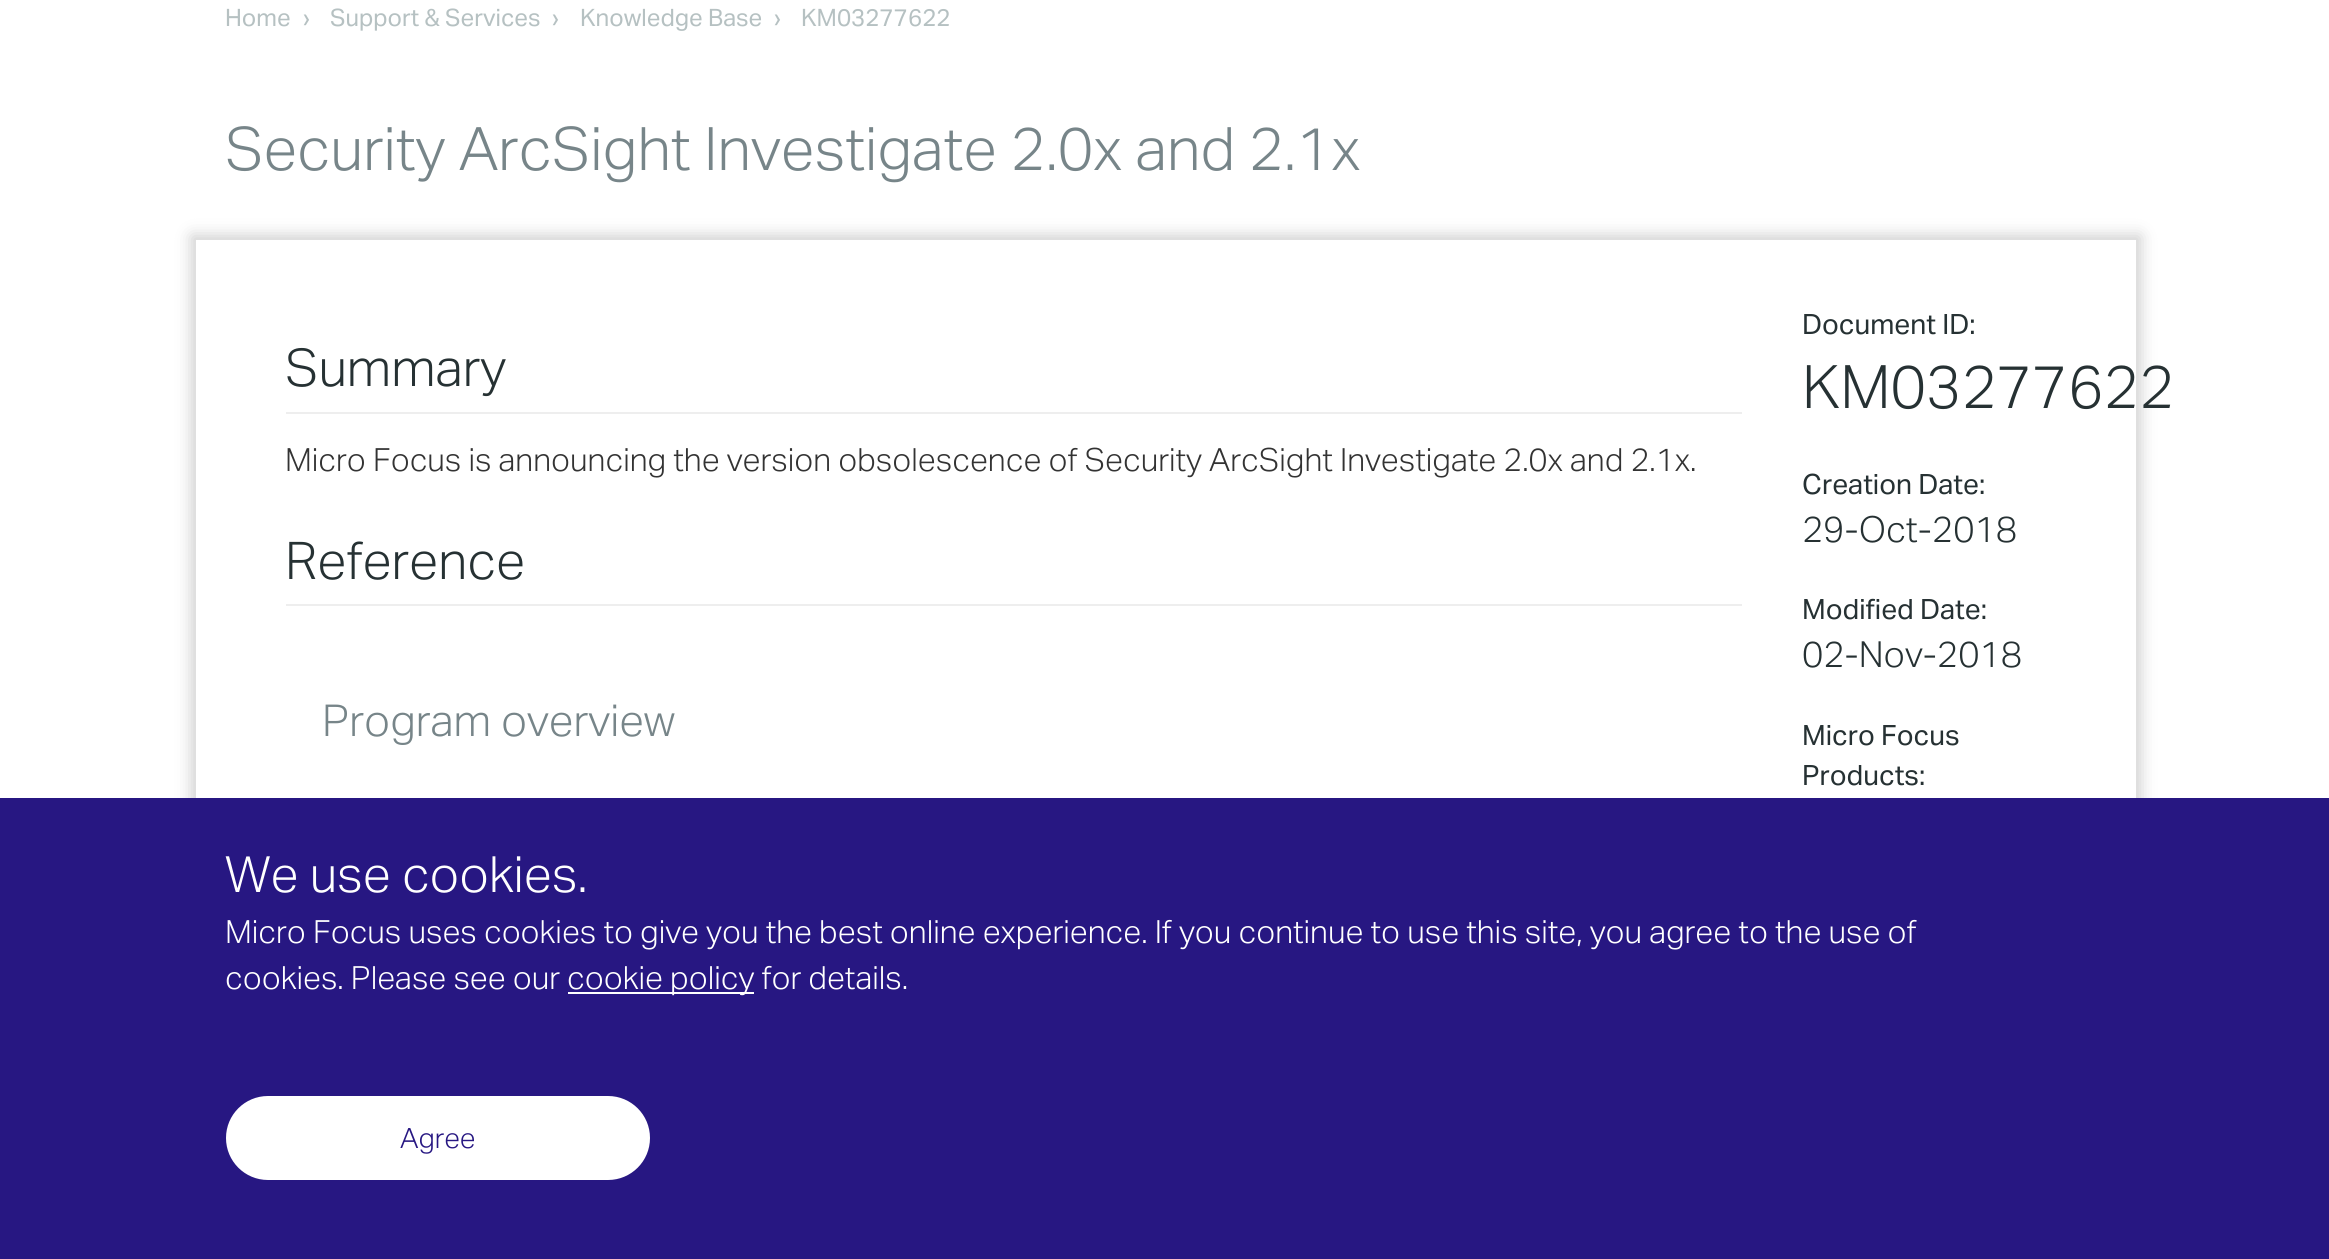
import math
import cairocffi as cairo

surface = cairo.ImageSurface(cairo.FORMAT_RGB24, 2329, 1259)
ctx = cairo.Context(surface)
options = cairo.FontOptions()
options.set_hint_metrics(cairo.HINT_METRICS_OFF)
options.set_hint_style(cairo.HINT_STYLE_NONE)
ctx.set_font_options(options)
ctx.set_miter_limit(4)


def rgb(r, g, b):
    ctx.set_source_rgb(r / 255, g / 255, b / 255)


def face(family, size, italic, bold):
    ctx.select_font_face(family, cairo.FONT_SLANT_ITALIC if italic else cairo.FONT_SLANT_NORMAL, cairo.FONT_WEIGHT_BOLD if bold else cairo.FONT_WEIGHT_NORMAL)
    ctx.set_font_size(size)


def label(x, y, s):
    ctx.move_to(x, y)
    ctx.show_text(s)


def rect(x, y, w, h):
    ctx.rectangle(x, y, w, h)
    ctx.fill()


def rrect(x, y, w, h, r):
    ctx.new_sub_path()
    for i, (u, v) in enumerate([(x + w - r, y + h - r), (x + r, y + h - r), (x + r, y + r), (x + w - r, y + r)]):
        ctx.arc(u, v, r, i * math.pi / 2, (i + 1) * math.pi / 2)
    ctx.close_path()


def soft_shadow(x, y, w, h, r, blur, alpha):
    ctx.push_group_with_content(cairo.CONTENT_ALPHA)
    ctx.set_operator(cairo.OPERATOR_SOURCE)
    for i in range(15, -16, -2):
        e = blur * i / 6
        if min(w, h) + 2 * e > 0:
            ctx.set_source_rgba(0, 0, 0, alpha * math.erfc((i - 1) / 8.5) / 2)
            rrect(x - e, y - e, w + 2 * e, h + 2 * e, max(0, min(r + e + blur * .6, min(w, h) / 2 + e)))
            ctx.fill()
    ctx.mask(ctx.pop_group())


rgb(255, 255, 255)
ctx.paint()
face('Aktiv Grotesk', 24, 0, 0)
rgb(182, 193, 194)
label(225, 26, 'Home')
label(303, 26, '›')
label(330, 26, 'Support & Services')
label(552, 26, '›')
label(580, 26, 'Knowledge Base')
label(774, 26, '›')
label(801, 26, 'KM03277622')
face('Aktiv Grotesk Light', 60, 0, 0)
rgb(119, 133, 137)
label(225, 170, 'Security ArcSight Investigate 2.0x and 2.1x')
ctx.save()
ctx.set_fill_rule(cairo.FILL_RULE_EVEN_ODD)
ctx.new_path()
ctx.move_to(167, 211)
ctx.line_to(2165, 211)
ctx.line_to(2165, 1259)
ctx.line_to(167, 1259)
ctx.close_path()
ctx.move_to(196, 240)
ctx.line_to(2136, 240)
ctx.line_to(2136, 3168)
ctx.line_to(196, 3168)
ctx.close_path()
ctx.clip()
rgb(204, 204, 204)
soft_shadow(192, 236, 1948, 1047, 0, 8, 1)
ctx.restore()
rgb(238, 238, 238)
rect(286, 412, 1456, 2)
face('Aktiv Grotesk Light', 52, 0, 0)
rgb(38, 49, 51)
label(285, 386, 'Summary')
face('Aktiv Grotesk Light', 32, 0, 0)
rgb(51, 51, 51)
label(285, 471, 'Micro Focus is announcing the version obsolescence of Security ArcSight Investigate 2.0x and 2.1x.')
rgb(238, 238, 238)
rect(286, 604, 1456, 2)
face('Aktiv Grotesk Light', 52, 0, 0)
rgb(38, 49, 51)
label(285, 579, 'Reference')
face('Aktiv Grotesk Light', 44, 0, 0)
rgb(119, 133, 137)
label(322, 736, 'Program overview')
face('Aktiv Grotesk', 28, 0, 0)
rgb(38, 49, 51)
label(1802, 334, 'Document ID:')
face('Aktiv Grotesk Light', 60, 0, 0)
label(1802, 408, 'KM03277622')
face('Aktiv Grotesk', 28, 0, 0)
label(1802, 494, 'Creation Date:')
face('Aktiv Grotesk Light', 36, 0, 0)
label(1802, 542, '29-Oct-2018')
face('Aktiv Grotesk', 28, 0, 0)
label(1802, 619, 'Modified Date:')
face('Aktiv Grotesk Light', 36, 0, 0)
label(1802, 667, '02-Nov-2018')
face('Aktiv Grotesk', 28, 0, 0)
label(1802, 745, 'Micro Focus')
label(1802, 785, 'Products:')
rgb(39, 23, 130)
rect(0, 798, 2329, 461)
face('Aktiv Grotesk Light', 50, 0, 0)
rgb(255, 255, 255)
label(225, 892, 'We use cookies.')
face('Aktiv Grotesk Light', 32, 0, 0)
label(225, 943, 'Micro Focus uses cookies to give you the best online experience. If you continue to use this site, you agree to the use of')
label(225, 989, 'cookies. Please see our')
rect(568, 992, 186, 2)
label(567, 989, 'cookie policy for details.')
rrect(227, 1097, 422, 82, 41)
ctx.fill_preserve()
ctx.stroke()
face('Aktiv Grotesk Light', 28, 0, 0)
rgb(39, 23, 130)
label(400, 1148, 'Agree')
surface.write_to_png('render.png')
